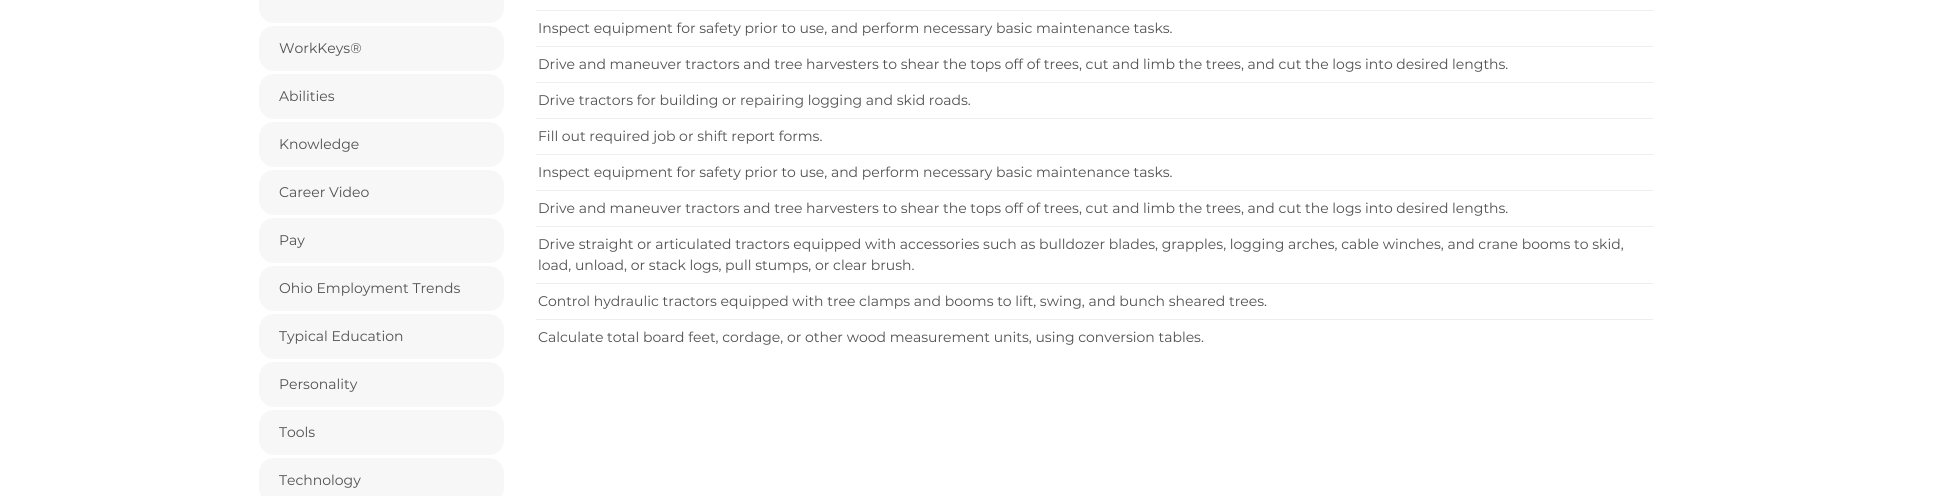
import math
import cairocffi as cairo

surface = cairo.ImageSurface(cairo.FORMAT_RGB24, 1938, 496)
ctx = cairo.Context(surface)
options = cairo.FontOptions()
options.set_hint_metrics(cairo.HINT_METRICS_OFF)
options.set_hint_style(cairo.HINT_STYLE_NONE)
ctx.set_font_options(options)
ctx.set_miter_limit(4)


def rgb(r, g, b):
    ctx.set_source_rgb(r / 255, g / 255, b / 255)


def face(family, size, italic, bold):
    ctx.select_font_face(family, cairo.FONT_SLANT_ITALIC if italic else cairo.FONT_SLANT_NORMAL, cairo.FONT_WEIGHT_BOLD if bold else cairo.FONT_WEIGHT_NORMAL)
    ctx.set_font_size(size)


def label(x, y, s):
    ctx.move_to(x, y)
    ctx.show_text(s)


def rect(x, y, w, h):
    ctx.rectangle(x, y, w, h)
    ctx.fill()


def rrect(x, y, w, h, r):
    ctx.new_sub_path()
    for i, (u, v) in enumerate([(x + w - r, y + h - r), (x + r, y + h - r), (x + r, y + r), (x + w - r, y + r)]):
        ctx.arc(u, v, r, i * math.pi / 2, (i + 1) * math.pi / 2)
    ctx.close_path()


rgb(255, 255, 255)
ctx.paint()
rgb(247, 247, 247)
rrect(259, -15, 245, 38, 15)
ctx.fill()
rrect(259, 26, 245, 45, 15)
ctx.fill()
face('Montserrat', 14, 0, 0)
rgb(82, 80, 81)
label(279, 53, 'WorkKeys®')
rgb(247, 247, 247)
rrect(259, 74, 245, 45, 15)
ctx.fill()
rgb(82, 80, 81)
label(279, 101, 'Abilities')
rgb(247, 247, 247)
rrect(259, 122, 245, 45, 15)
ctx.fill()
rgb(82, 80, 81)
label(279, 149, 'Knowledge')
rgb(247, 247, 247)
rrect(259, 170, 245, 45, 15)
ctx.fill()
rgb(82, 80, 81)
label(279, 197, 'Career Video')
rgb(247, 247, 247)
rrect(259, 218, 245, 45, 15)
ctx.fill()
rgb(82, 80, 81)
label(279, 245, 'Pay')
rgb(247, 247, 247)
rrect(259, 266, 245, 45, 15)
ctx.fill()
rgb(82, 80, 81)
label(279, 293, 'Ohio Employment Trends')
rgb(247, 247, 247)
rrect(259, 314, 245, 45, 15)
ctx.fill()
rgb(82, 80, 81)
label(279, 341, 'Typical Education')
rgb(247, 247, 247)
rrect(259, 362, 245, 45, 15)
ctx.fill()
rgb(82, 80, 81)
label(279, 389, 'Personality')
rgb(247, 247, 247)
rrect(259, 410, 245, 45, 15)
ctx.fill()
rgb(82, 80, 81)
label(279, 437, 'Tools')
rgb(247, 247, 247)
rrect(259, 458, 245, 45, 15)
ctx.fill()
rgb(82, 80, 81)
label(279, 485, 'Technology')
rgb(238, 238, 238)
rect(536, 10, 1117, 1)
rgb(82, 80, 81)
label(538, 33, 'Inspect equipment for safety prior to use, and perform necessary basic maintenance tasks.')
rgb(238, 238, 238)
rect(536, 46, 1117, 1)
rgb(82, 80, 81)
label(538, 69, 'Drive and maneuver tractors and tree harvesters to shear the tops off of trees, cut and limb the trees, and cut the logs into desired lengths.')
rgb(238, 238, 238)
rect(536, 82, 1117, 1)
rgb(82, 80, 81)
label(538, 105, 'Drive tractors for building or repairing logging and skid roads.')
rgb(238, 238, 238)
rect(536, 118, 1117, 1)
rgb(82, 80, 81)
label(538, 141, 'Fill out required job or shift report forms.')
rgb(238, 238, 238)
rect(536, 154, 1117, 1)
rgb(82, 80, 81)
label(538, 177, 'Inspect equipment for safety prior to use, and perform necessary basic maintenance tasks.')
rgb(238, 238, 238)
rect(536, 190, 1117, 1)
rgb(82, 80, 81)
label(538, 213, 'Drive and maneuver tractors and tree harvesters to shear the tops off of trees, cut and limb the trees, and cut the logs into desired lengths.')
rgb(238, 238, 238)
rect(536, 226, 1117, 1)
rgb(82, 80, 81)
label(538, 249, 'Drive straight or articulated tractors equipped with accessories such as bulldozer blades, grapples, logging arches, cable winches, and crane booms to skid,')
label(538, 270, 'load, unload, or stack logs, pull stumps, or clear brush.')
rgb(238, 238, 238)
rect(536, 283, 1117, 1)
rgb(82, 80, 81)
label(538, 306, 'Control hydraulic tractors equipped with tree clamps and booms to lift, swing, and bunch sheared trees.')
rgb(238, 238, 238)
rect(536, 319, 1117, 1)
rgb(82, 80, 81)
label(538, 342, 'Calculate total board feet, cordage, or other wood measurement units, using conversion tables.')
surface.write_to_png('render.png')
